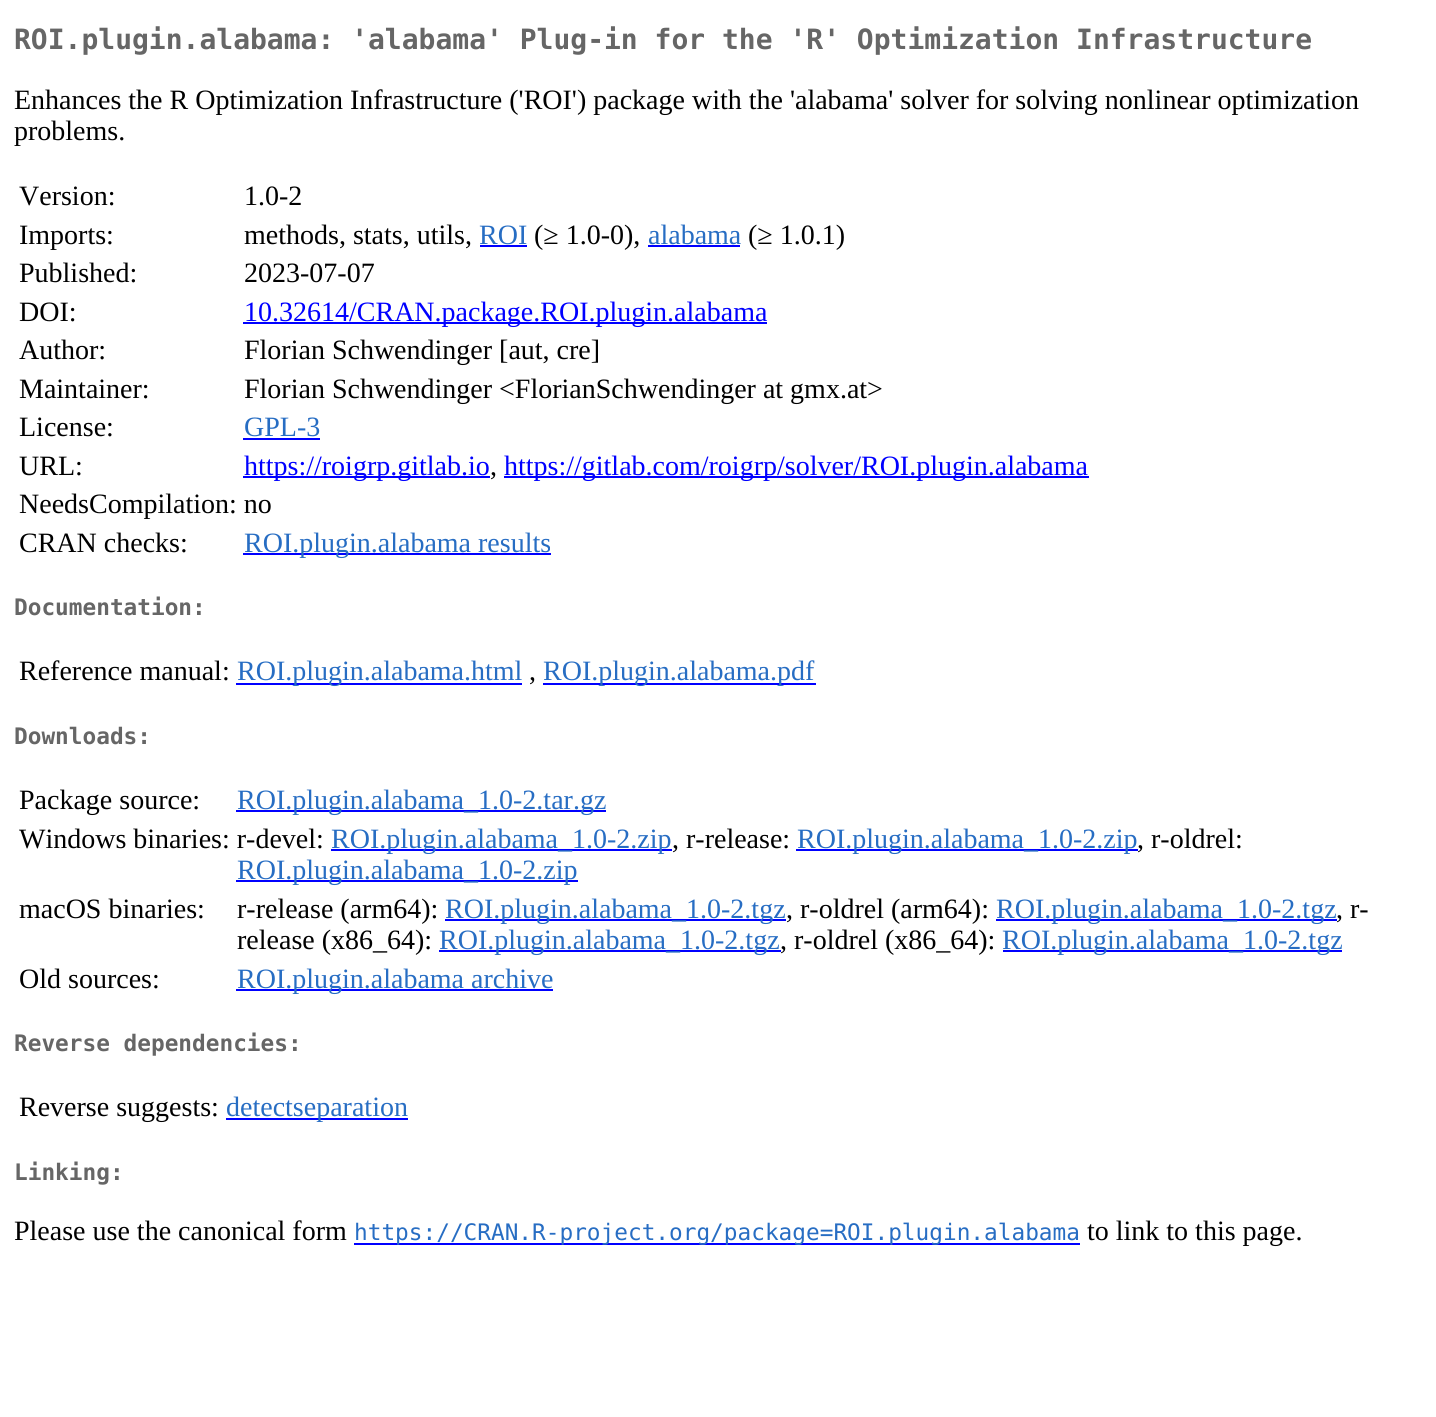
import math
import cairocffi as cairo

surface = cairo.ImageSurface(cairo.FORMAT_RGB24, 1436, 1417)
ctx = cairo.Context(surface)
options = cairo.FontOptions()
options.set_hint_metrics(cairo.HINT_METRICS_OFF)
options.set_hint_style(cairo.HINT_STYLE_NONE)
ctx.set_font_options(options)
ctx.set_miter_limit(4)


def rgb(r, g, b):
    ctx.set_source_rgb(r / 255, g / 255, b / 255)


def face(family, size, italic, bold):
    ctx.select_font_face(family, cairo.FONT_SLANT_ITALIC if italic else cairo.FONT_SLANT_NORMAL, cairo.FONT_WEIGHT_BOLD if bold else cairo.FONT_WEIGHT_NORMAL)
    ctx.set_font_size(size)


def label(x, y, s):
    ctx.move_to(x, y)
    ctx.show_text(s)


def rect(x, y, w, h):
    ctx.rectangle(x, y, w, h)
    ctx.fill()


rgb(255, 255, 255)
ctx.paint()
face('DejaVu Sans Mono', 28, 0, 1)
rgb(102, 102, 102)
label(14, 49, 'ROI.plugin.alabama: \'alabama\' Plug-in for the \'R\' Optimization Infrastructure')
face('Liberation Serif', 28, 0, 0)
rgb(0, 0, 0)
label(14, 109, 'Enhances the R Optimization Infrastructure (\'ROI\') package with the \'alabama\' solver for solving nonlinear optimization')
label(14, 140, 'problems.')
label(19, 205, 'Version:')
label(244, 205, '1.0-2')
label(19, 244, 'Imports:')
label(244, 244, 'methods, stats, utils,')
rgb(39, 109, 195)
label(479, 244, 'ROI')
rgb(0, 0, 255)
rect(480, 245, 47, 2)
rgb(0, 0, 0)
label(534, 244, '(≥ 1.0-0),')
rgb(39, 109, 195)
label(648, 244, 'alabama')
rgb(0, 0, 255)
rect(648, 245, 92, 2)
rgb(0, 0, 0)
label(748, 244, '(≥ 1.0.1)')
label(19, 282, 'Published:')
label(244, 282, '2023-07-07')
label(19, 321, 'DOI:')
rgb(0, 0, 255)
rect(243, 322, 524, 2)
label(244, 321, '10.32614/CRAN.package.ROI.plugin.alabama')
rgb(0, 0, 0)
label(19, 359, 'Author:')
label(244, 359, 'Florian Schwendinger [aut, cre]')
label(19, 398, 'Maintainer:')
label(244, 398, 'Florian Schwendinger <FlorianSchwendinger at gmx.at>')
label(19, 436, 'License:')
rgb(39, 109, 195)
label(244, 436, 'GPL-3')
rgb(0, 0, 255)
rect(243, 438, 77, 2)
rgb(0, 0, 0)
label(19, 475, 'URL:')
rgb(0, 0, 255)
rect(243, 476, 247, 2)
label(244, 475, 'https://roigrp.gitlab.io')
rgb(0, 0, 0)
label(490, 475, ',')
rgb(0, 0, 255)
rect(504, 476, 585, 2)
label(504, 475, 'https://gitlab.com/roigrp/solver/ROI.plugin.alabama')
rgb(0, 0, 0)
label(19, 513, 'NeedsCompilation: no')
label(19, 552, 'CRAN checks:')
rgb(0, 0, 255)
rect(243, 553, 308, 2)
rgb(39, 109, 195)
label(244, 552, 'ROI.plugin.alabama results')
face('DejaVu Sans Mono', 22.75, 0, 1)
rgb(102, 102, 102)
label(14, 615, 'Documentation:')
face('Liberation Serif', 28, 0, 0)
rgb(0, 0, 0)
label(19, 680, 'Reference manual:')
rgb(0, 0, 255)
rect(236, 683, 286, 2)
rgb(39, 109, 195)
label(237, 680, 'ROI.plugin.alabama.html')
rgb(0, 0, 0)
label(529, 680, ',')
rgb(0, 0, 255)
rect(543, 683, 273, 2)
rgb(39, 109, 195)
label(543, 680, 'ROI.plugin.alabama.pdf')
face('DejaVu Sans Mono', 22.75, 0, 1)
rgb(102, 102, 102)
label(14, 744, 'Downloads:')
face('Liberation Serif', 28, 0, 0)
rgb(0, 0, 0)
label(19, 809, 'Package source:')
rgb(0, 0, 255)
rect(236, 810, 370, 2)
rgb(39, 109, 195)
label(237, 809, 'ROI.plugin.alabama_1.0-2.tar.gz')
rgb(0, 0, 0)
label(19, 848, 'Windows binaries: r-devel:')
rgb(0, 0, 255)
rect(331, 849, 341, 2)
rgb(39, 109, 195)
label(331, 848, 'ROI.plugin.alabama_1.0-2.zip')
rgb(0, 0, 0)
label(672, 848, ', r-release:')
rgb(0, 0, 255)
rect(796, 849, 342, 2)
rgb(39, 109, 195)
label(797, 848, 'ROI.plugin.alabama_1.0-2.zip')
rgb(0, 0, 0)
label(1137, 848, ', r-oldrel:')
rgb(0, 0, 255)
rect(236, 880, 342, 2)
rgb(39, 109, 195)
label(237, 879, 'ROI.plugin.alabama_1.0-2.zip')
rgb(255, 255, 255)
rect(428, 854, 1, 1)
rgb(0, 0, 0)
label(19, 918, 'macOS binaries:')
label(237, 918, 'r-release (arm64):')
rgb(0, 0, 255)
rect(445, 919, 341, 2)
rgb(39, 109, 195)
label(445, 918, 'ROI.plugin.alabama_1.0-2.tgz')
rgb(0, 0, 0)
label(786, 918, ', r-oldrel (arm64):')
rgb(0, 0, 255)
rect(996, 919, 341, 2)
rgb(39, 109, 195)
label(996, 918, 'ROI.plugin.alabama_1.0-2.tgz')
rgb(0, 0, 0)
label(1336, 918, ', r-')
label(237, 949, 'release (x86_64):')
rgb(0, 0, 255)
rect(439, 950, 342, 2)
rgb(39, 109, 195)
label(439, 949, 'ROI.plugin.alabama_1.0-2.tgz')
rgb(255, 255, 255)
rect(542, 924, 1, 1)
rgb(0, 0, 0)
label(780, 949, ', r-oldrel (x86_64):')
rgb(0, 0, 255)
rect(1003, 950, 339, 2)
rgb(39, 109, 195)
label(1002, 949, 'ROI.plugin.alabama_1.0-2.tgz')
rgb(255, 255, 255)
rect(1093, 924, 224, 1)
rgb(0, 0, 0)
label(19, 988, 'Old sources:')
rgb(0, 0, 255)
rect(236, 989, 317, 2)
rgb(39, 109, 195)
label(237, 988, 'ROI.plugin.alabama archive')
face('DejaVu Sans Mono', 22.75, 0, 1)
rgb(102, 102, 102)
label(14, 1051, 'Reverse dependencies:')
face('Liberation Serif', 28, 0, 0)
rgb(0, 0, 0)
label(19, 1116, 'Reverse suggests:')
rgb(0, 0, 255)
rect(226, 1118, 182, 2)
rgb(39, 109, 195)
label(226, 1116, 'detectseparation')
face('DejaVu Sans Mono', 22.75, 0, 1)
rgb(102, 102, 102)
label(14, 1180, 'Linking:')
face('Liberation Serif', 28, 0, 0)
rgb(0, 0, 0)
label(14, 1240, 'Please use the canonical form')
rgb(0, 0, 255)
rect(354, 1243, 726, 2)
face('DejaVu Sans Mono', 22.75, 0, 0)
rgb(39, 109, 195)
label(354, 1240, 'https://CRAN.R-project.org/package=ROI.plugin.alabama')
face('Liberation Serif', 28, 0, 0)
rgb(0, 0, 0)
label(1087, 1240, 'to link to this page.')
surface.write_to_png('render.png')
